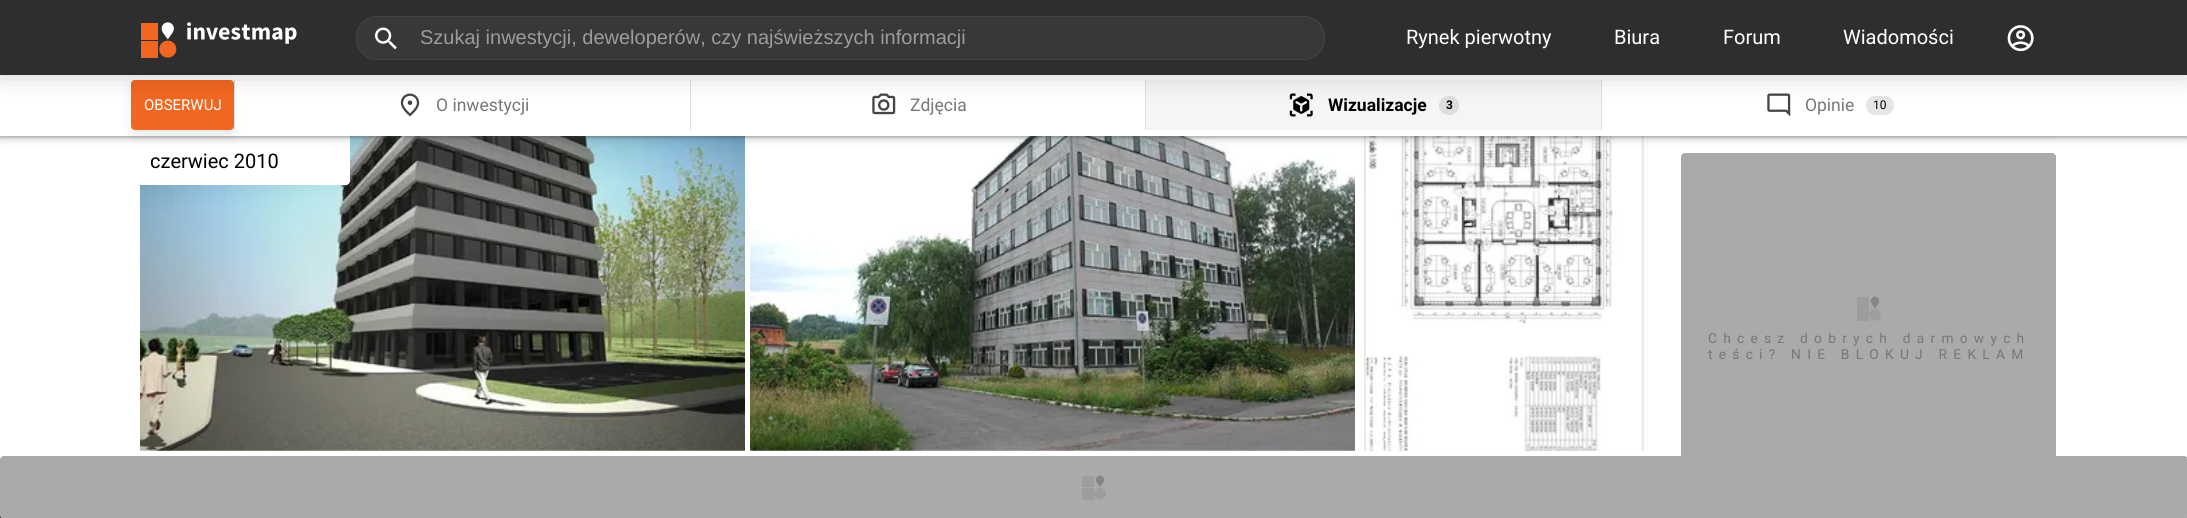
import math
import cairocffi as cairo

surface = cairo.ImageSurface(cairo.FORMAT_RGB24, 2187, 518)
ctx = cairo.Context(surface)
options = cairo.FontOptions()
options.set_hint_metrics(cairo.HINT_METRICS_OFF)
options.set_hint_style(cairo.HINT_STYLE_NONE)
ctx.set_font_options(options)
ctx.set_miter_limit(4)


def rgb(r, g, b):
    ctx.set_source_rgb(r / 255, g / 255, b / 255)


def face(family, size, italic, bold):
    ctx.select_font_face(family, cairo.FONT_SLANT_ITALIC if italic else cairo.FONT_SLANT_NORMAL, cairo.FONT_WEIGHT_BOLD if bold else cairo.FONT_WEIGHT_NORMAL)
    ctx.set_font_size(size)


def label(x, y, s):
    ctx.move_to(x, y)
    ctx.show_text(s)


def tracked(x, y, s, letter, word):
    ctx.move_to(x, y)
    for ch in s:
        ctx.show_text(ch)
        ctx.rel_move_to(letter + word * (ch == ' '), 0)


def rect(x, y, w, h):
    ctx.rectangle(x, y, w, h)
    ctx.fill()


def rrect(x, y, w, h, r):
    ctx.new_sub_path()
    for i, (u, v) in enumerate([(x + w - r, y + h - r), (x + r, y + h - r), (x + r, y + r), (x + w - r, y + r)]):
        ctx.arc(u, v, r, i * math.pi / 2, (i + 1) * math.pi / 2)
    ctx.close_path()


def soft_shadow(x, y, w, h, r, blur, alpha):
    ctx.push_group_with_content(cairo.CONTENT_ALPHA)
    ctx.set_operator(cairo.OPERATOR_SOURCE)
    for i in range(15, -16, -2):
        e = blur * i / 6
        if min(w, h) + 2 * e > 0:
            ctx.set_source_rgba(0, 0, 0, alpha * math.erfc((i - 1) / 8.5) / 2)
            rrect(x - e, y - e, w + 2 * e, h + 2 * e, max(0, min(r + e + blur * .6, min(w, h) / 2 + e)))
            ctx.fill()
    ctx.mask(ctx.pop_group())


def image(path, x, y, w, h):
    ctx.save()
    ctx.set_source_surface(cairo.ImageSurface.create_from_png(path), x, y)
    ctx.rectangle(x, y, w, h)
    ctx.fill()
    ctx.restore()


rgb(255, 255, 255)
ctx.paint()
image('image7.png', 140, 136, 605, 315)
image('image8.png', 750, 136, 605, 315)
rgb(245, 245, 245)
rect(1360, 136, 288, 315)
image('image9.png', 1360, 136, 288, 315)
rgb(255, 255, 255)
ctx.new_path()
ctx.move_to(138, 136)
ctx.line_to(350, 136)
ctx.line_to(350, 181)
ctx.curve_to(350, 183, 348, 185, 346, 185)
ctx.line_to(138, 185)
ctx.close_path()
ctx.fill()
rgb(170, 170, 170)
rrect(1681, 153, 375, 312, 4)
ctx.fill()
rgb(60, 64, 67)
soft_shadow(-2, 74, 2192, 67, 0, 4, 0.15)
soft_shadow(0, 75, 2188, 63, 0, 1, 0.3)
rgb(0, 0, 0)
soft_shadow(1681, 88, 375, 45, 4, 5, 0.1)
rgb(255, 255, 255)
rect(0, 75, 2187, 61)
rgb(0, 0, 0)
soft_shadow(131, 85, 103, 50, 4, 5, 0.1)
rgb(241, 103, 34)
rrect(131, 80, 103, 50, 4)
ctx.fill()
rgb(255, 255, 255)
rect(235, 82, 5, 48)
rgb(221, 221, 221)
rect(234, 80, 1, 50)
image('image3.png', 400, 93, 20, 24)
rect(690, 80, 1, 50)
image('image4.png', 872, 93, 24, 22)
rgb(245, 245, 245)
rect(1146, 80, 455, 50)
rgb(221, 221, 221)
rect(1145, 80, 1, 50)
image('image5.png', 1289, 93, 24, 24)
rrect(1439, 96, 20, 19, 9.5)
ctx.fill()
rect(1601, 80, 1, 50)
image('image6.png', 1767, 93, 24, 24)
rgb(230, 230, 230)
rrect(1866, 96, 28, 19, 9.5)
ctx.fill()
rgb(0, 0, 0)
soft_shadow(0, 0, 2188, 75, 0, 12.5, 0.2)
rgb(46, 46, 46)
rect(0, 0, 2187, 75)
image('image0.png', 141, 22, 156, 36)
rgb(56, 56, 56)
rrect(356.5, 16.5, 968, 43, 20.5)
ctx.fill_preserve()
rgb(68, 68, 68)
ctx.set_line_width(1)
ctx.stroke()
image('image1.png', 375, 27, 22, 23)
face('Liberation Sans', 20, 0, 0)
rgb(156, 156, 156)
label(420, 44, 'Szukaj inwestycji, deweloperów, czy najświeższych informacji')
face('Roboto', 20, 0, 0)
rgb(255, 255, 255)
label(1406, 44, 'Rynek pierwotny')
label(1614, 44, 'Biura')
label(1723, 44, 'Forum')
label(1843, 44, 'Wiadomości')
image('image2.png', 2007, 25, 27, 27)
face('Roboto', 15, 0, 0)
label(144, 110, 'OBSERWUJ')
face('Roboto', 17.5, 0, 0)
rgb(119, 119, 119)
label(436, 111, 'O inwestycji')
label(910, 111, 'Zdjęcia')
face('Roboto', 17.5, 0, 1)
rgb(0, 0, 0)
label(1328, 111, 'Wizualizacje')
face('Roboto', 12, 0, 1)
label(1446, 109, '3')
face('Roboto', 17.5, 0, 0)
rgb(119, 119, 119)
label(1805, 111, 'Opinie')
face('Roboto', 12, 0, 0)
rgb(0, 0, 0)
label(1873, 109, '10')
face('Roboto', 20, 0, 0)
label(150, 168, 'czerwiec 2010')
image('image10.png', 1857, 296, 24, 25)
face('Roboto', 13.75, 0, 0)
rgb(119, 119, 119)
tracked(1708, 343, 'Chcesz dobrych darmowych', 6.25, 0)
tracked(1708, 359, 'teści? NIE BLOKUJ REKLAM', 6.25, 0)
rgb(46, 46, 46)
rect(0, 515, 2187, 3)
rgb(170, 170, 170)
rrect(0, 456, 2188, 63, 4)
ctx.fill()
image('image11.png', 1082, 475, 24, 25)
surface.write_to_png('render.png')
